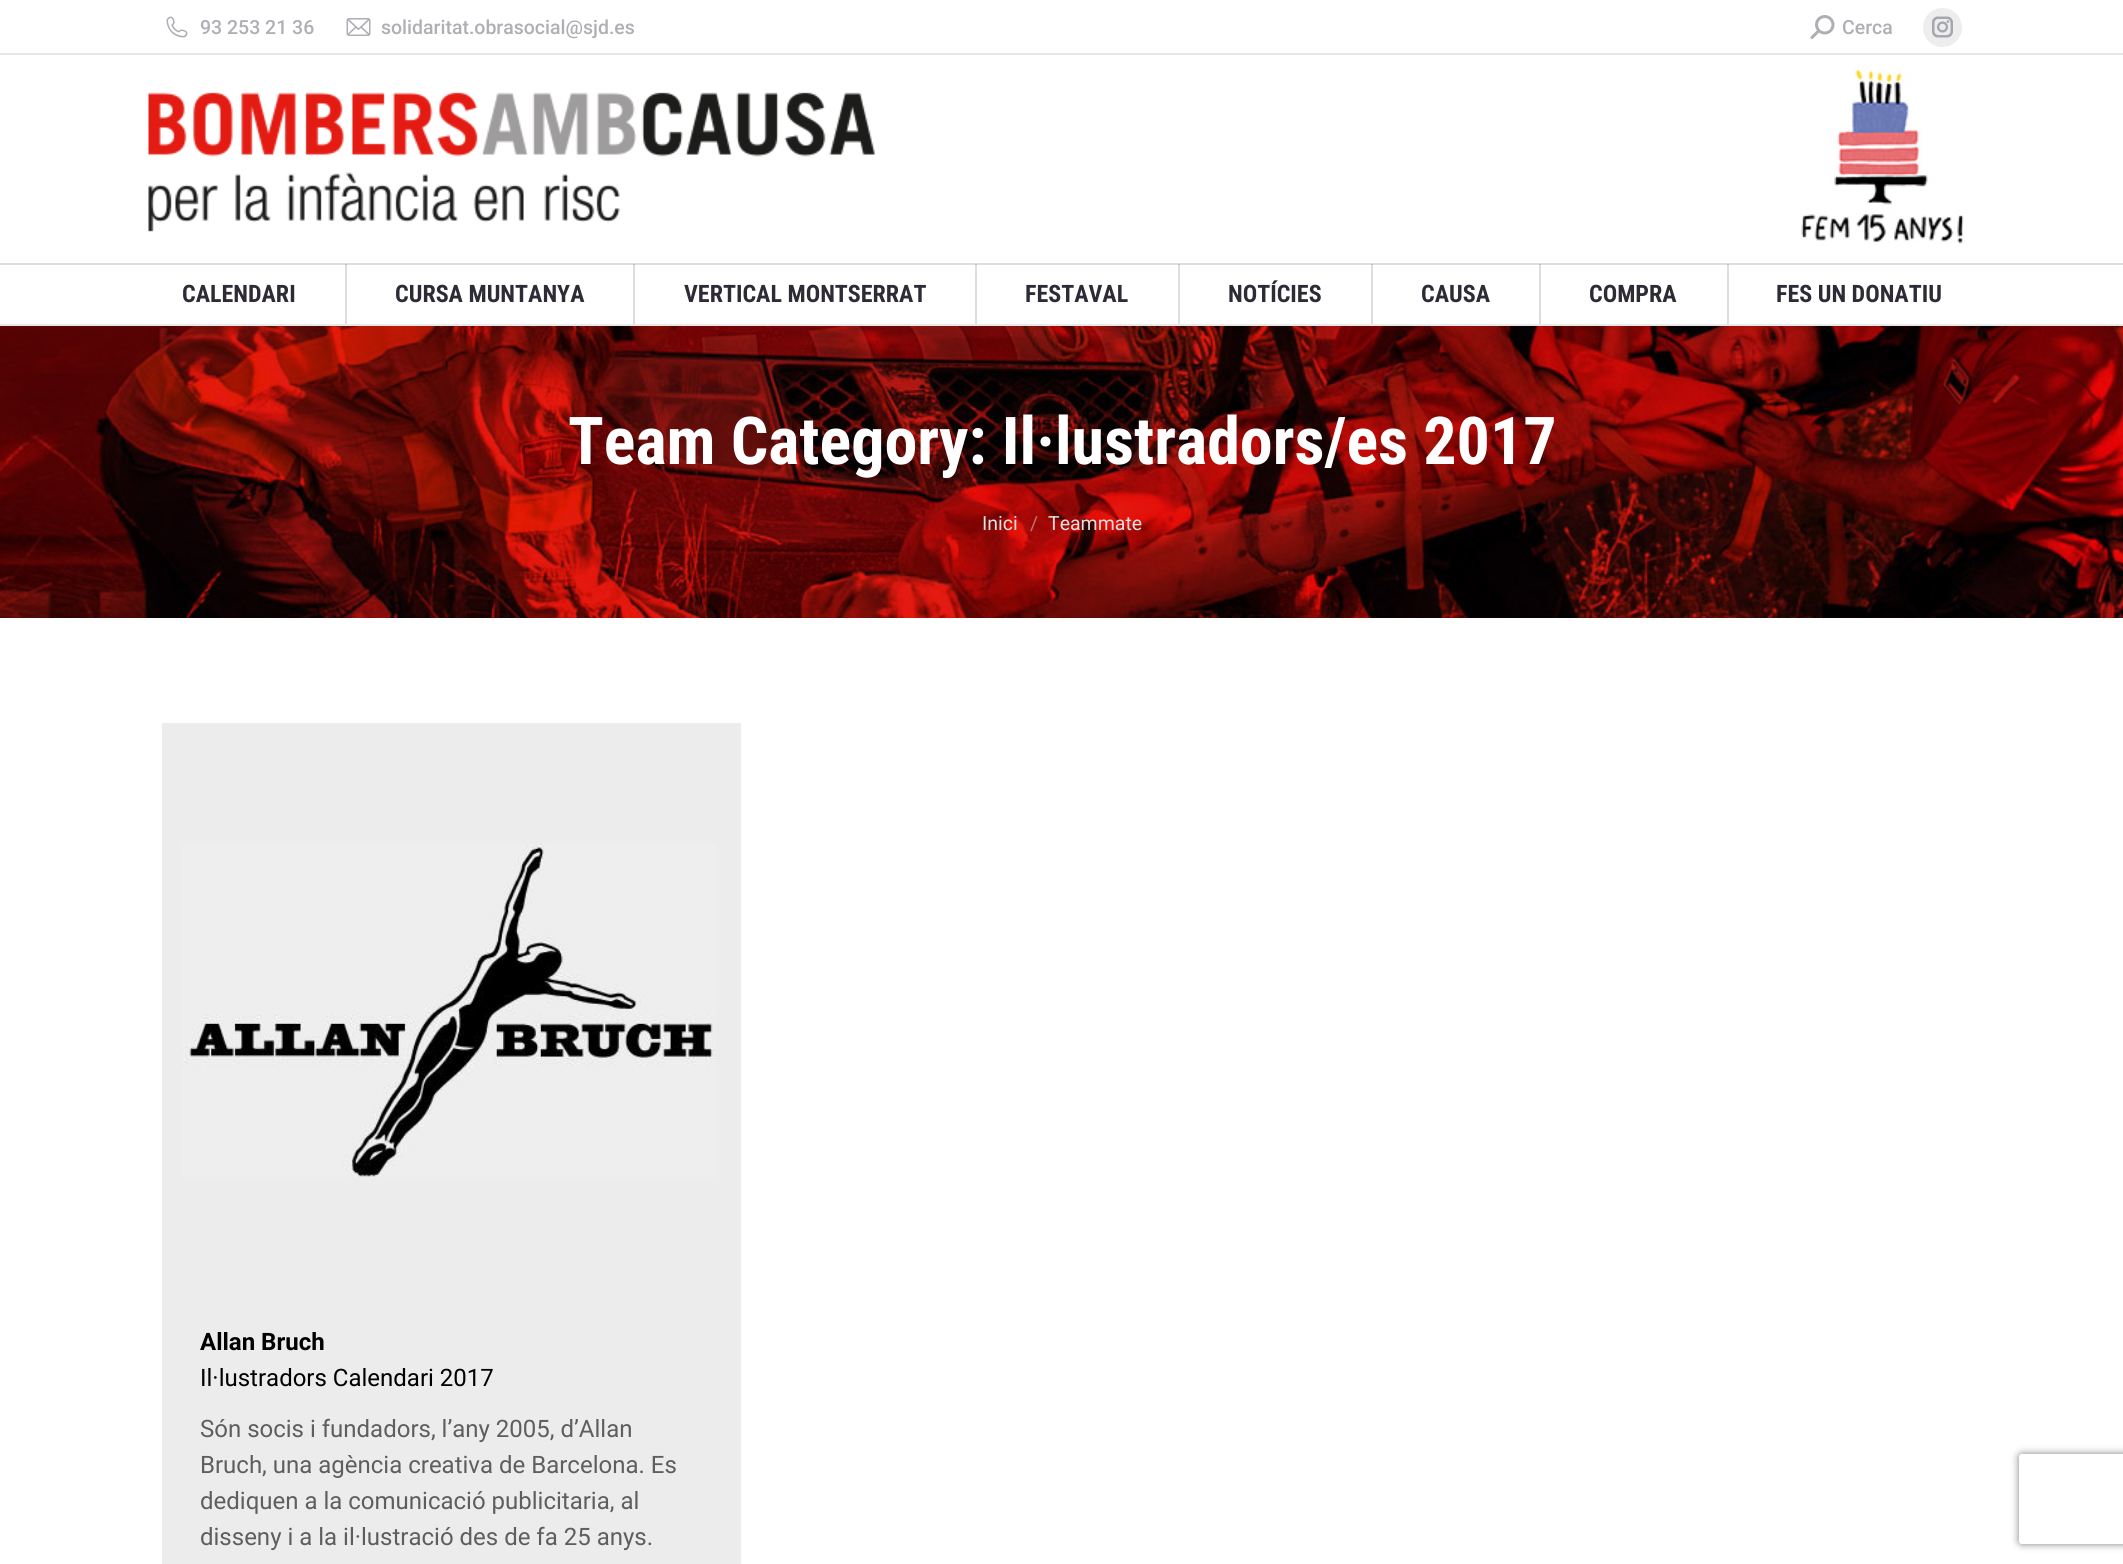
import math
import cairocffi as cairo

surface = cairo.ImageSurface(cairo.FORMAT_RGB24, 2123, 1564)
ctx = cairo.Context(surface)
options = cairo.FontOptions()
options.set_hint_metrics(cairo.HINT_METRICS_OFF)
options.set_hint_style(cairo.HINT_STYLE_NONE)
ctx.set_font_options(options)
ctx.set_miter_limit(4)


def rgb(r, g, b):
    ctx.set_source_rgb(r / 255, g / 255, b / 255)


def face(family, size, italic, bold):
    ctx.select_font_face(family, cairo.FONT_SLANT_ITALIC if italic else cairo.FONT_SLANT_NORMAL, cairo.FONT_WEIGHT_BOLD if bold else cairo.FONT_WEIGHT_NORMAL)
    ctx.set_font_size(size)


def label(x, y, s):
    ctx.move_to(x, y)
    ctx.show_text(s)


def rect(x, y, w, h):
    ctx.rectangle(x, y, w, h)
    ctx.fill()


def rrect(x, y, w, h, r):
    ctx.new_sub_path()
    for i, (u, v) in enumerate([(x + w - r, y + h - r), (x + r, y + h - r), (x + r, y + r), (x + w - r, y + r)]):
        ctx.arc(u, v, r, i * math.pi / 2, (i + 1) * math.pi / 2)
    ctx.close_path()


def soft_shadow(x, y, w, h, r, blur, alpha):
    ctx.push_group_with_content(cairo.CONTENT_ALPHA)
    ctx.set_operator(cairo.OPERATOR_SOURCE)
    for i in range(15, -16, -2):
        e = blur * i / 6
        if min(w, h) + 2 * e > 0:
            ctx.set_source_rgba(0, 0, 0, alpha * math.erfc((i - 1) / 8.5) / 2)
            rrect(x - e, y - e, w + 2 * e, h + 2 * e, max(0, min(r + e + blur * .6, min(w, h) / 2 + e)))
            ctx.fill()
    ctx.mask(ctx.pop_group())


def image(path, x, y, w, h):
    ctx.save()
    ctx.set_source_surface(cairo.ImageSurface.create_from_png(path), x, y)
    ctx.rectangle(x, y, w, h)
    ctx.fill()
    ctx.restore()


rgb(255, 255, 255)
ctx.paint()
rgb(222, 222, 222)
rect(1727, 264, 2, 60)
rect(1539, 264, 2, 60)
rect(1371, 264, 2, 60)
rect(1178, 264, 2, 60)
rect(975, 264, 2, 60)
rect(633, 264, 2, 60)
rect(345, 264, 2, 60)
rgb(233, 233, 233)
rect(0, 324, 2123, 2)
image('image0.png', 166, 16, 22, 22)
face('Roboto Medium', 19.5, 0, 0)
rgb(174, 175, 181)
label(200, 34, '93 253 21 36')
image('image1.png', 346, 18, 25, 18)
label(381, 34, 'solidaritat.obrasocial@sjd.es')
image('image2.png', 1810, 15, 25, 24)
label(1842, 34, 'Cerca')
rgb(237, 237, 238)
ctx.new_path()
ctx.arc(1942.5, 27.5, 19.5, 0, 2 * math.pi)
ctx.fill()
image('image3.png', 1932, 16, 21, 22)
rgb(231, 231, 231)
rect(0, 53, 2123, 2)
image('image4.png', 148, 92, 727, 140)
image('image5.png', 1801, 69, 163, 175)
rgb(222, 222, 222)
rect(0, 263, 2123, 2)
rgb(193, 193, 193)
rect(1727, 264, 2, 1)
rect(1539, 264, 2, 1)
rect(1371, 264, 2, 1)
rect(1178, 264, 2, 1)
rect(975, 264, 2, 1)
rect(633, 264, 2, 1)
rect(345, 264, 2, 1)
face('Roboto Condensed', 24, 0, 1)
rgb(46, 43, 54)
label(182, 302, 'CALENDARI')
label(395, 302, 'CURSA MUNTANYA')
label(684, 302, 'VERTICAL MONTSERRAT')
label(1025, 302, 'FESTAVAL')
label(1228, 302, 'NOTÍCIES')
label(1421, 302, 'CAUSA')
label(1589, 302, 'COMPRA')
label(1776, 302, 'FES UN DONATIU')
image('image6.png', 0, 326, 2123, 292)
face('Roboto Condensed', 66, 0, 1)
rgb(255, 255, 255)
label(568, 464, 'Team Category: Il·lustradors/es 2017')
face('Roboto', 19.5, 0, 0)
rgb(226, 226, 226)
label(982, 530, 'Inici')
rgb(193, 117, 117)
label(1030, 530, '/')
rgb(226, 226, 226)
label(1048, 530, 'Teammate')
rgb(236, 236, 236)
rect(162, 723, 579, 841)
image('image7.png', 182, 844, 534, 333)
face('Roboto', 24, 0, 1)
rgb(0, 0, 0)
label(200, 1350, 'Allan Bruch')
face('Roboto', 24, 0, 0)
label(200, 1386, 'Il·lustradors Calendari 2017')
rgb(94, 94, 94)
label(200, 1437, 'Són socis i fundadors, l’any 2005, d’Allan')
label(200, 1473, 'Bruch, una agència creativa de Barcelona. Es')
label(200, 1509, 'dediquen a la comunicació publicitaria, al')
label(200, 1545, 'disseny i a la il·lustració des de fa 25 anys.')
ctx.save()
ctx.set_fill_rule(cairo.FILL_RULE_EVEN_ODD)
ctx.new_path()
ctx.move_to(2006, 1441)
ctx.line_to(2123, 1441)
ctx.line_to(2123, 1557)
ctx.line_to(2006, 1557)
ctx.close_path()
ctx.move_to(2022, 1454)
ctx.line_to(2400, 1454)
ctx.curve_to(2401.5, 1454, 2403, 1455.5, 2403, 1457)
ctx.line_to(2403, 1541)
ctx.curve_to(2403, 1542.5, 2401.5, 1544, 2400, 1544)
ctx.line_to(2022, 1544)
ctx.curve_to(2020.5, 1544, 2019, 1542.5, 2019, 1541)
ctx.line_to(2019, 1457)
ctx.curve_to(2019, 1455.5, 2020.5, 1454, 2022, 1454)
ctx.close_path()
ctx.clip()
rgb(128, 128, 128)
soft_shadow(2019, 1454, 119, 90, 3, 4, 1)
ctx.restore()
surface.write_to_png('render.png')
